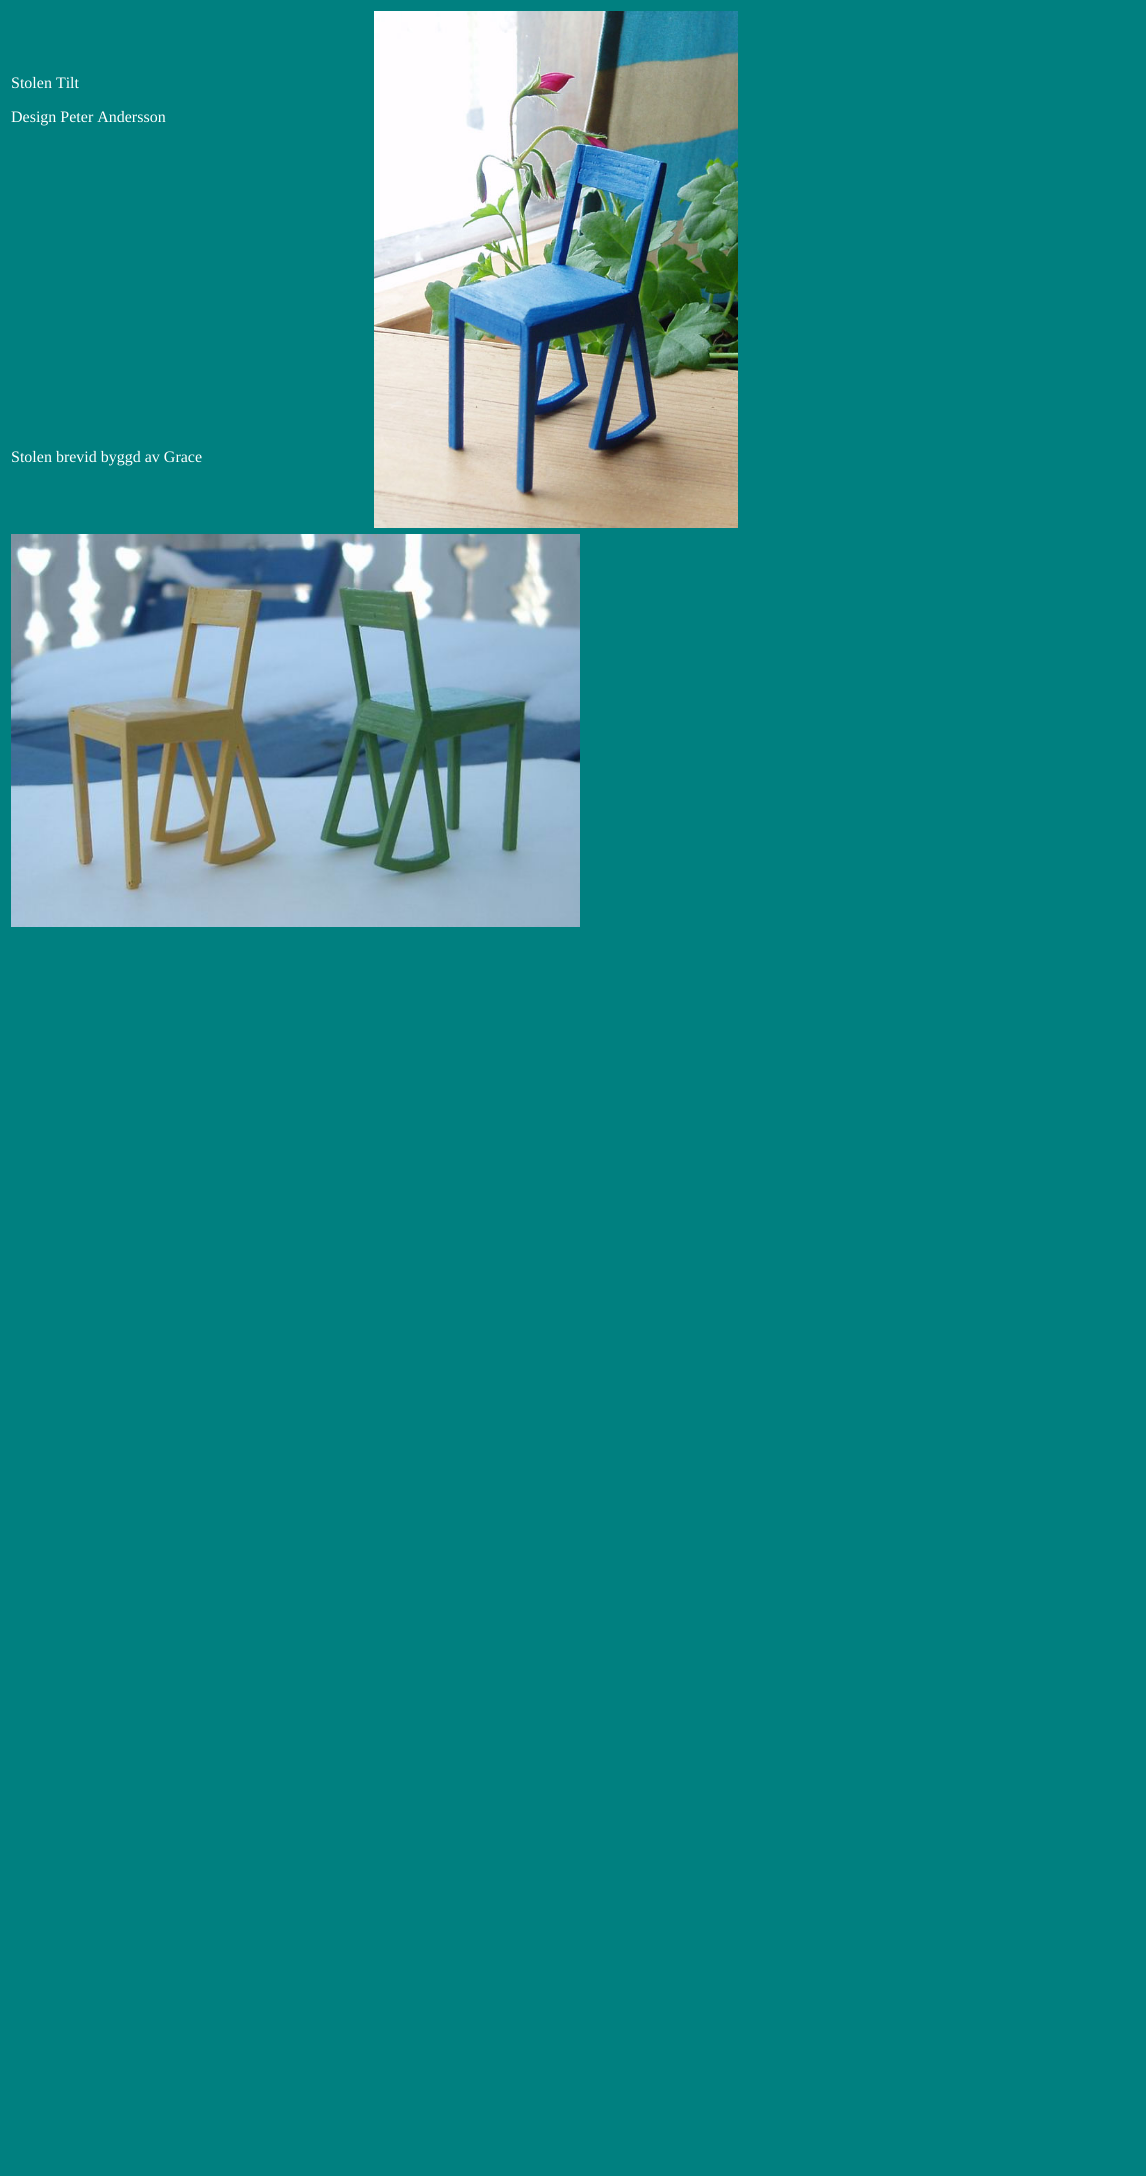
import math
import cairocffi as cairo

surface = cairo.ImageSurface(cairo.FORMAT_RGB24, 1146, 2176)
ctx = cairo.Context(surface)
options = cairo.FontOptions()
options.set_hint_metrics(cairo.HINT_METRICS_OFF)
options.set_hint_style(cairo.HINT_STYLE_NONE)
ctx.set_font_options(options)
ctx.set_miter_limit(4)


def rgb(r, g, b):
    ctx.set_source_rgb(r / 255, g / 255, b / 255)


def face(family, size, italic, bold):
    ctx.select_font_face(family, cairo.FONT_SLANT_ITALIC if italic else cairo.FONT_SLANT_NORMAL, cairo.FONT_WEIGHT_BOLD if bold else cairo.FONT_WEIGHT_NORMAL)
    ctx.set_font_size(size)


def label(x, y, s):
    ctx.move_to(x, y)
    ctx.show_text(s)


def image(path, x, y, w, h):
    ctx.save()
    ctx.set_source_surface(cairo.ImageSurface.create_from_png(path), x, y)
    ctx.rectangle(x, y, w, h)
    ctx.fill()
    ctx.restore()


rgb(0, 128, 128)
ctx.paint()
face('Liberation Serif', 16, 0, 0)
rgb(255, 255, 255)
label(11, 88, 'Stolen Tilt')
label(11, 122, 'Design Peter Andersson')
label(11, 462, 'Stolen brevid byggd av Grace')
image('image0.png', 374, 11, 364, 517)
image('image1.png', 11, 534, 569, 393)
surface.write_to_png('render.png')
